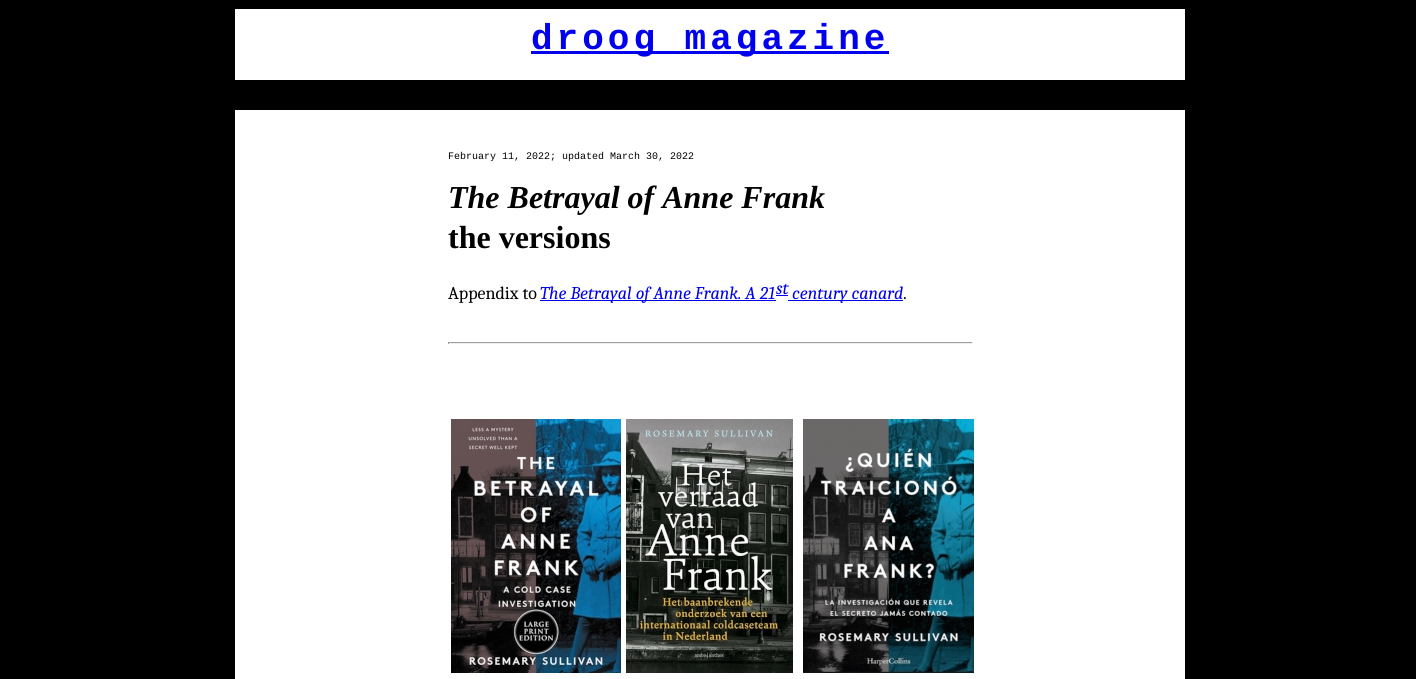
import math
import cairocffi as cairo

surface = cairo.ImageSurface(cairo.FORMAT_RGB24, 1416, 679)
ctx = cairo.Context(surface)
options = cairo.FontOptions()
options.set_hint_metrics(cairo.HINT_METRICS_OFF)
options.set_hint_style(cairo.HINT_STYLE_NONE)
ctx.set_font_options(options)
ctx.set_miter_limit(4)


def rgb(r, g, b):
    ctx.set_source_rgb(r / 255, g / 255, b / 255)


def face(family, size, italic, bold):
    ctx.select_font_face(family, cairo.FONT_SLANT_ITALIC if italic else cairo.FONT_SLANT_NORMAL, cairo.FONT_WEIGHT_BOLD if bold else cairo.FONT_WEIGHT_NORMAL)
    ctx.set_font_size(size)


def label(x, y, s):
    ctx.move_to(x, y)
    ctx.show_text(s)


def tracked(x, y, s, letter, word):
    ctx.move_to(x, y)
    for ch in s:
        ctx.show_text(ch)
        ctx.rel_move_to(letter + word * (ch == ' '), 0)


def rect(x, y, w, h):
    ctx.rectangle(x, y, w, h)
    ctx.fill()


def image(path, x, y, w, h):
    ctx.save()
    ctx.set_source_surface(cairo.ImageSurface.create_from_png(path), x, y)
    ctx.rectangle(x, y, w, h)
    ctx.fill()
    ctx.restore()


rgb(0, 0, 0)
ctx.paint()
rgb(255, 255, 255)
rect(235, 9, 950, 71)
rgb(0, 0, 238)
rect(531, 51, 358, 3)
face('Liberation Mono', 36, 0, 1)
tracked(531, 49, 'droog magazine', 4, 0)
rgb(255, 255, 255)
rect(235, 110, 950, 569)
face('Liberation Mono', 10, 0, 0)
rgb(0, 0, 0)
label(448, 159, 'February 11, 2022; updated March 30, 2022')
face('Liberation Serif', 32, 1, 1)
label(448, 208, 'The Betrayal of Anne Frank')
face('Liberation Serif', 32, 0, 1)
label(448, 248, 'the versions')
face('Caladea', 18, 0, 0)
label(448, 299, 'Appendix to')
rgb(0, 0, 238)
rect(540, 300, 236, 1)
face('Caladea', 18, 1, 0)
label(540, 299, 'The Betrayal of Anne Frank. A 21')
rect(776, 295, 12, 1)
label(776, 294, 'st')
rect(788, 300, 115, 1)
label(792, 299, 'century canard')
face('Caladea', 18, 0, 0)
rgb(0, 0, 0)
label(903, 299, '.')
rgb(159, 159, 159)
rect(448, 342, 525, 1)
rgb(238, 238, 238)
rect(972, 342, 1, 2)
rect(448, 343, 525, 1)
rgb(159, 159, 159)
rect(448, 342, 1, 2)
image('image0.png', 451, 419, 170, 254)
image('image1.png', 626, 419, 167, 254)
image('image2.png', 803, 419, 171, 254)
surface.write_to_png('render.png')
